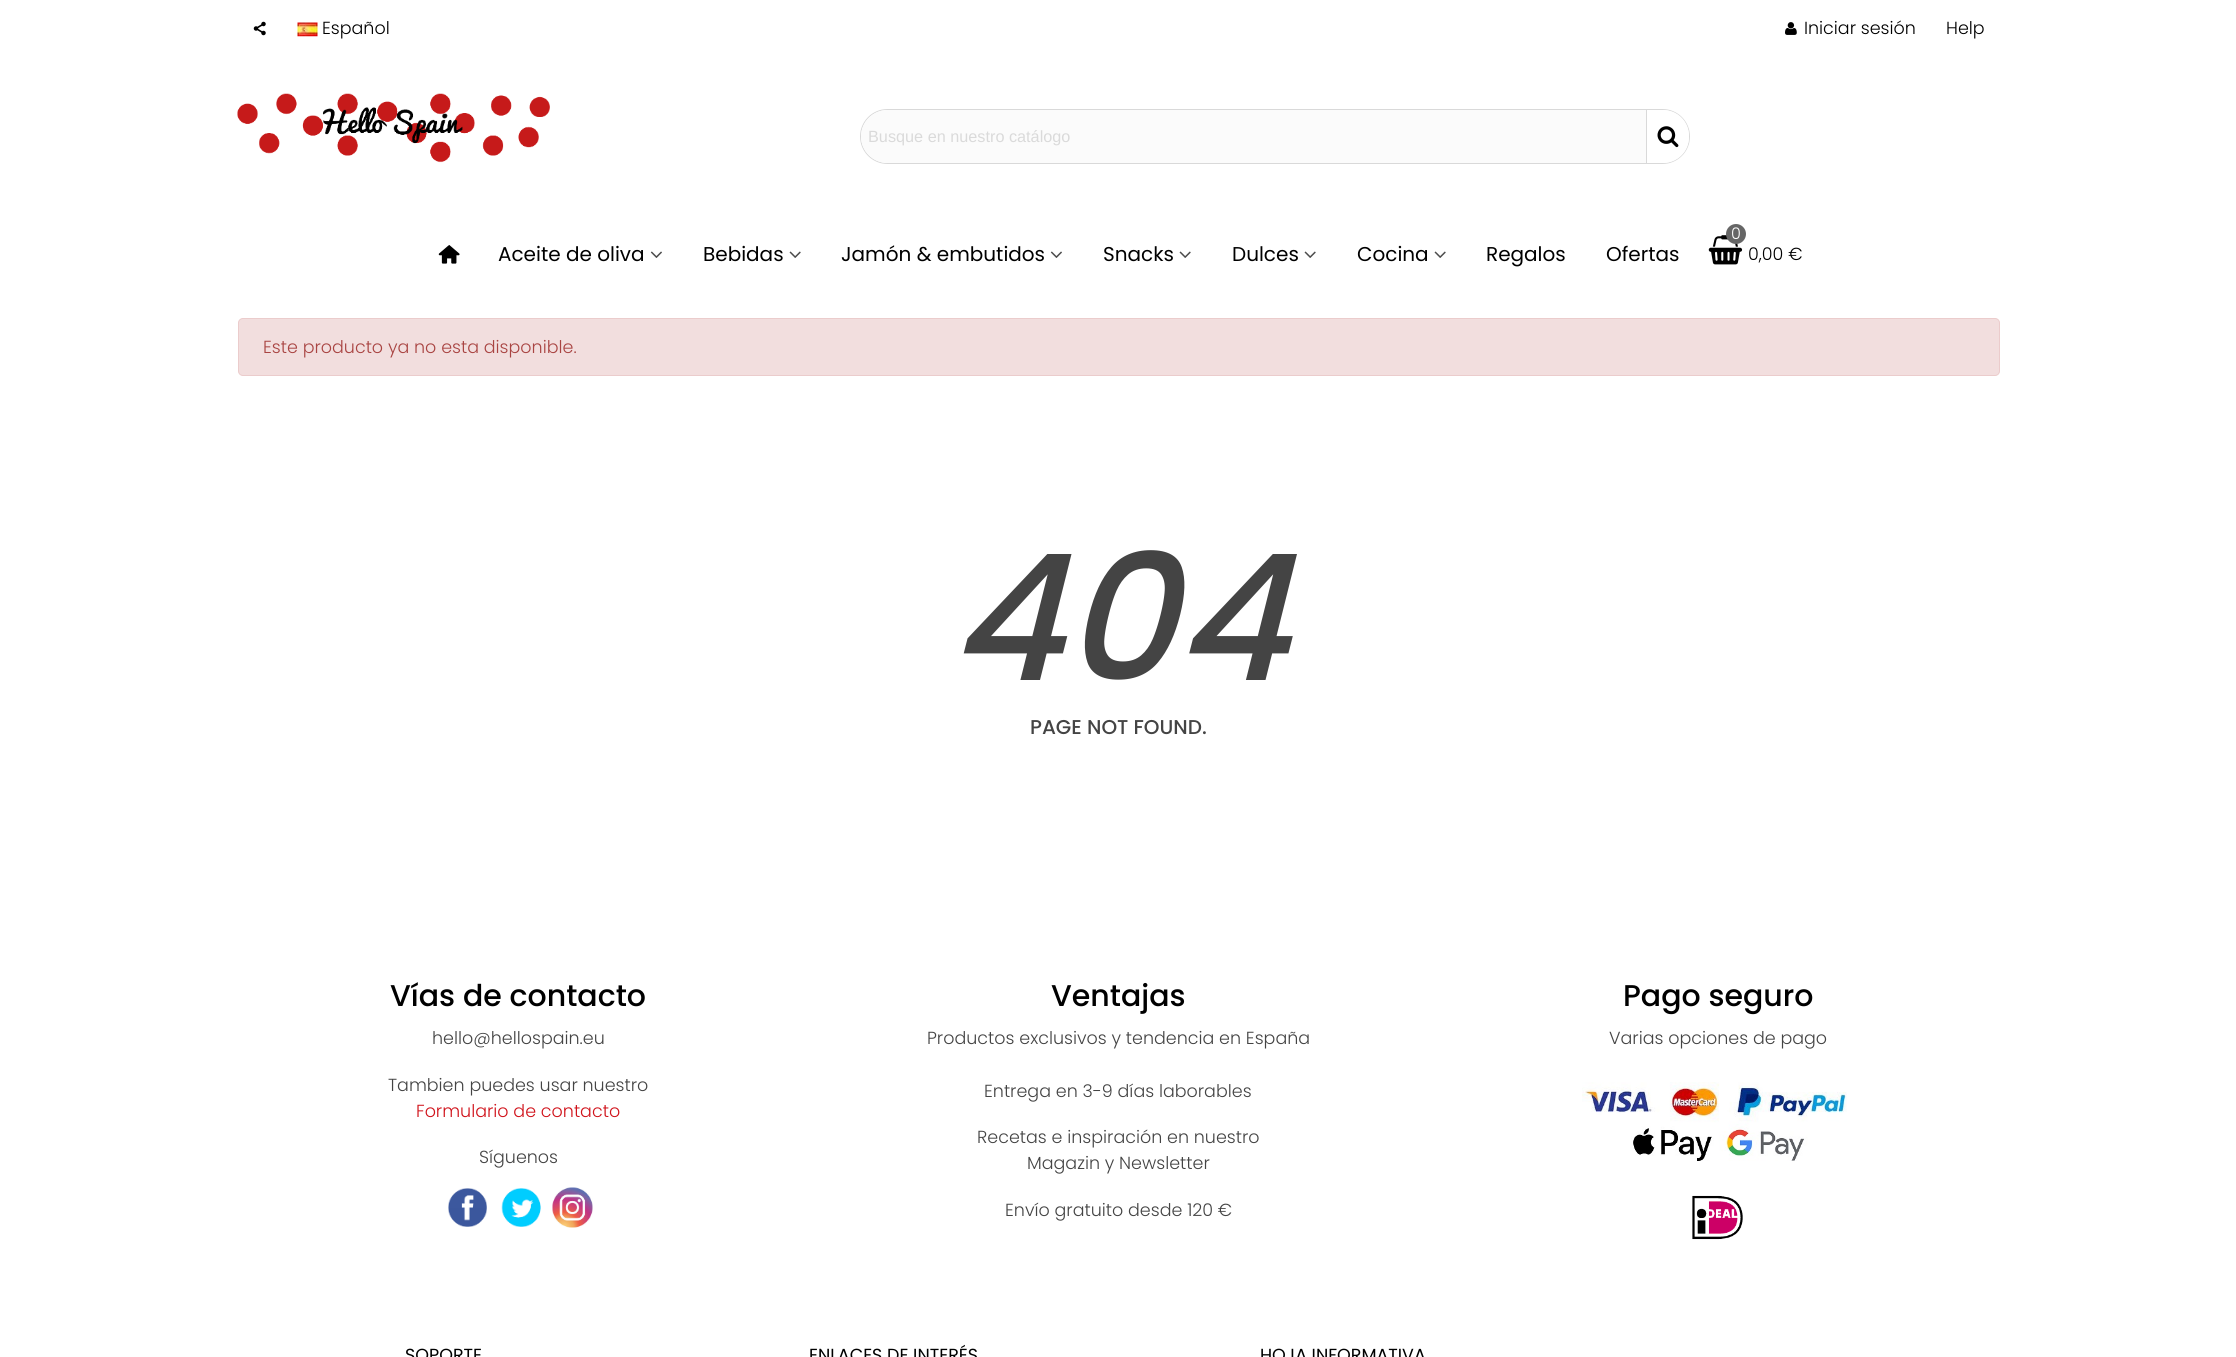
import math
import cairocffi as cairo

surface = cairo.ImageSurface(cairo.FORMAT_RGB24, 2236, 1357)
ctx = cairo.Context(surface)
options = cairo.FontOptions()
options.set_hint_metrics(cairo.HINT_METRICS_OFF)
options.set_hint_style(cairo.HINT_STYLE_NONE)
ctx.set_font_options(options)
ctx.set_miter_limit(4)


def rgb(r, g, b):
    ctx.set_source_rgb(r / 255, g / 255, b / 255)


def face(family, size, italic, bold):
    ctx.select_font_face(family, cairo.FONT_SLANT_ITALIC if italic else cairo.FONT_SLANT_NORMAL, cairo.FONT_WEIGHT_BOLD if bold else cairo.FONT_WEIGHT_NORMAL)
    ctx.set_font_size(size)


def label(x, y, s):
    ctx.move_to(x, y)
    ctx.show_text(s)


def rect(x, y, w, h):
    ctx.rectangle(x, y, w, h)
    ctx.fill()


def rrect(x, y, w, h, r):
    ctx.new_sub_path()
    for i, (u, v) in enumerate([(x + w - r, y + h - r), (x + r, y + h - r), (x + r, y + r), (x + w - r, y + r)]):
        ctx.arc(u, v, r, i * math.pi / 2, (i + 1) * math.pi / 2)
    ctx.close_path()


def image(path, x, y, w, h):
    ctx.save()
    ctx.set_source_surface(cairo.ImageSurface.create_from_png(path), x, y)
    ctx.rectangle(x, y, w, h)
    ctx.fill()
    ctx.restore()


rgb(255, 255, 255)
ctx.paint()
image('image0.png', 253, 21, 13, 15)
image('image1.png', 297, 22, 21, 15)
face('Poppins Light', 17.5, 0, 0)
rgb(0, 0, 0)
label(322, 34, 'Español')
image('image2.png', 1785, 22, 12, 13)
label(1804, 34, 'Iniciar sesión')
label(1946, 34, 'Help')
image('image3.png', 237, 93, 313, 70)
rrect(860.5, 109.5, 829, 54, 27)
rgb(217, 217, 217)
ctx.set_line_width(1)
ctx.stroke()
rgb(251, 251, 251)
ctx.new_path()
ctx.move_to(887.5, 110)
ctx.line_to(1646, 110)
ctx.line_to(1646, 163)
ctx.line_to(887.5, 163)
ctx.curve_to(873, 163, 861, 151, 861, 136.5)
ctx.curve_to(861, 122, 873, 110, 887.5, 110)
ctx.close_path()
ctx.fill()
face('Liberation Sans', 16.25, 0, 0)
rgb(218, 218, 218)
label(868, 142, 'Busque en nuestro catálogo')
rgb(255, 255, 255)
ctx.new_path()
ctx.move_to(1646, 110)
ctx.line_to(1663, 110)
ctx.curve_to(1677.5, 110, 1689, 121.5, 1689, 136)
ctx.line_to(1689, 137)
ctx.curve_to(1689, 151.5, 1677.5, 163, 1663, 163)
ctx.line_to(1646, 163)
ctx.close_path()
ctx.fill()
rgb(217, 217, 217)
rect(1646, 110, 1, 53)
image('image4.png', 1657, 126, 22, 22)
image('image5.png', 438, 245, 22, 19)
face('Poppins', 20, 0, 0)
rgb(0, 0, 0)
label(498, 261, 'Aceite de oliva')
image('image6.png', 650, 251, 12, 7)
label(703, 261, 'Bebidas')
image('image7.png', 789, 251, 12, 7)
label(841, 261, 'Jamón & embutidos')
image('image6.png', 1050, 251, 12, 7)
label(1103, 261, 'Snacks')
image('image7.png', 1179, 251, 12, 7)
label(1232, 261, 'Dulces')
image('image7.png', 1304, 251, 12, 7)
label(1357, 261, 'Cocina')
image('image7.png', 1434, 251, 12, 7)
label(1486, 261, 'Regalos')
label(1606, 261, 'Ofertas')
image('image8.png', 1708, 235, 35, 30)
rgb(102, 102, 102)
ctx.arc(1736, 234, 10, 0, 2 * math.pi)
ctx.fill()
face('Poppins Light', 16, 0, 0)
rgb(255, 255, 255)
label(1731, 239, '0')
face('Poppins Light', 17.5, 0, 0)
rgb(0, 0, 0)
label(1748, 260, '0,00 €')
rgb(242, 222, 222)
rrect(238.5, 318.5, 1761, 57, 4.5)
ctx.fill_preserve()
rgb(235, 204, 204)
ctx.stroke()
rgb(169, 68, 66)
label(263, 353, 'Este producto ya no esta disponible.')
face('Poppins Medium', 175, 1, 0)
rgb(68, 68, 68)
label(949, 680, '404')
face('Poppins Medium', 20, 0, 0)
label(1030, 734, 'PAGE NOT FOUND.')
face('Poppins Medium', 30, 0, 0)
rgb(0, 0, 0)
label(390, 1006, 'Vías de contacto')
face('Poppins Light', 17.5, 0, 0)
rgb(68, 68, 68)
label(432, 1044, 'hello@hellospain.eu')
label(388, 1091, 'Tambien puedes usar nuestro')
rgb(208, 18, 26)
label(416, 1117, 'Formulario de contacto')
rgb(68, 68, 68)
label(479, 1163, 'Síguenos')
image('image9.png', 448, 1188, 39, 39)
image('image10.png', 501, 1188, 40, 39)
image('image11.png', 552, 1187, 41, 41)
face('Poppins Medium', 30, 0, 0)
rgb(0, 0, 0)
label(1051, 1006, 'Ventajas')
face('Poppins Light', 17.5, 0, 0)
rgb(68, 68, 68)
label(927, 1044, 'Productos exclusivos y tendencia en España')
label(984, 1097, 'Entrega en 3-9 días laborables')
label(977, 1143, 'Recetas e inspiración en nuestro')
label(1027, 1169, 'Magazin y Newsletter')
label(1005, 1216, 'Envío gratuito desde 120 €')
face('Poppins Medium', 30, 0, 0)
rgb(0, 0, 0)
label(1623, 1006, 'Pago seguro')
face('Poppins Light', 17.5, 0, 0)
rgb(68, 68, 68)
label(1609, 1044, 'Varias opciones de pago')
image('image12.png', 1582, 1082, 265, 79)
image('image13.png', 1692, 1195, 51, 45)
face('Poppins', 17.5, 0, 0)
rgb(0, 0, 0)
label(405, 1361, 'SOPORTE')
label(809, 1361, 'ENLACES DE INTERÉS')
label(1260, 1361, 'HOJA INFORMATIVA')
surface.write_to_png('render.png')
